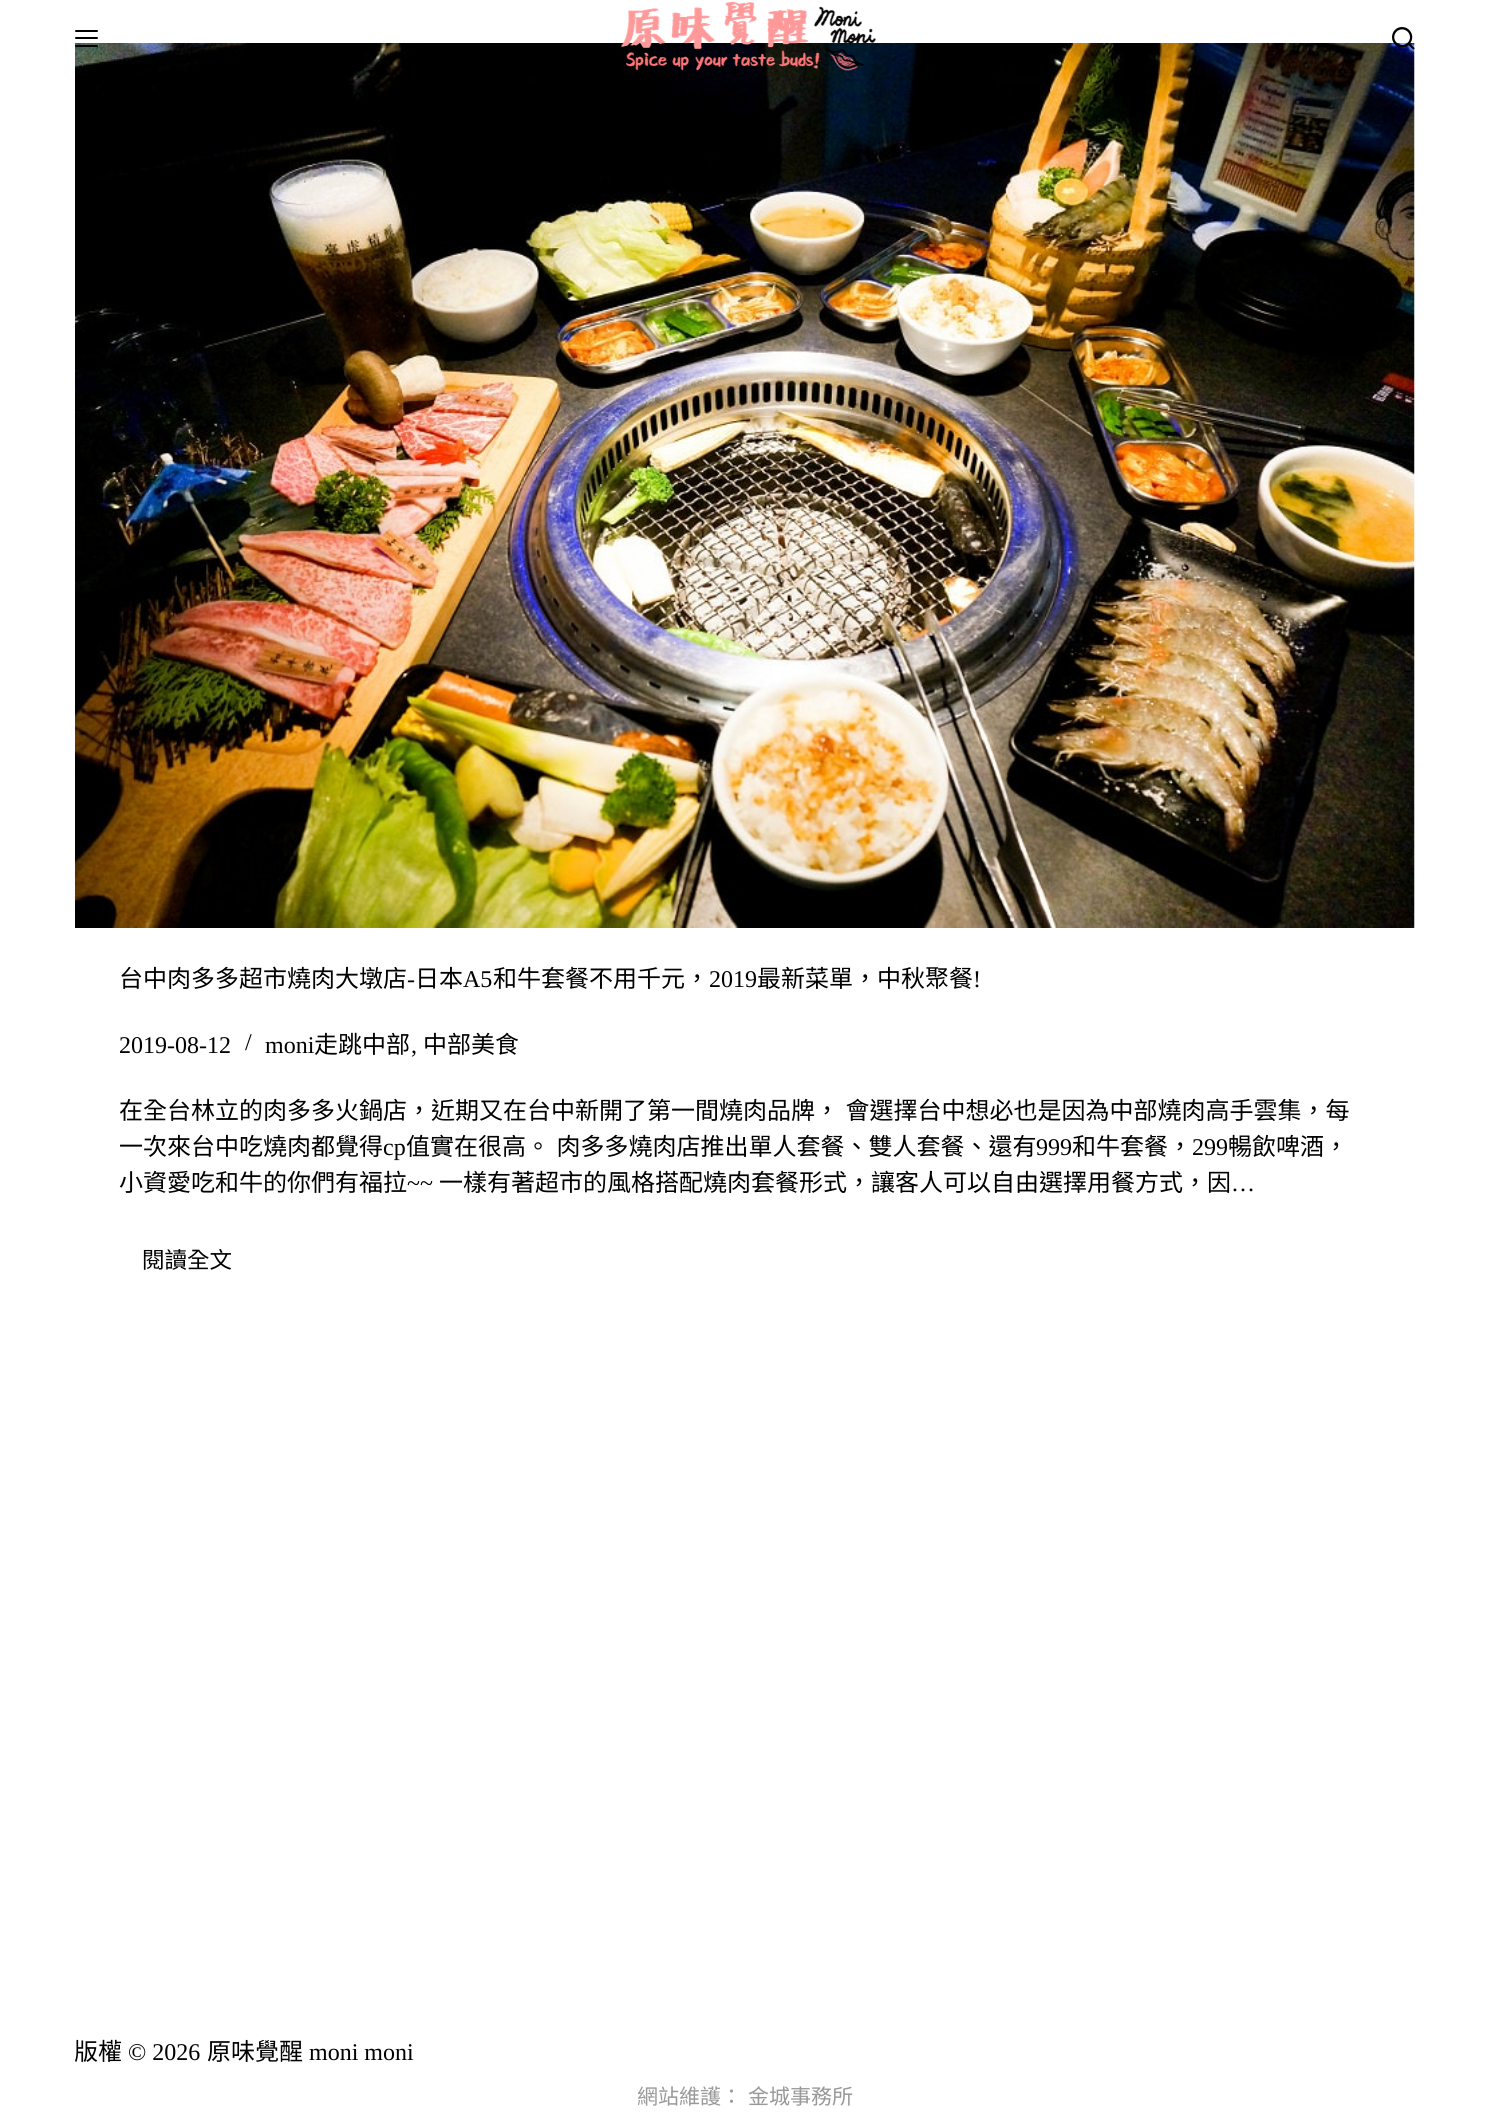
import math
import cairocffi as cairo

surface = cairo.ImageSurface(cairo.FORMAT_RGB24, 1489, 2119)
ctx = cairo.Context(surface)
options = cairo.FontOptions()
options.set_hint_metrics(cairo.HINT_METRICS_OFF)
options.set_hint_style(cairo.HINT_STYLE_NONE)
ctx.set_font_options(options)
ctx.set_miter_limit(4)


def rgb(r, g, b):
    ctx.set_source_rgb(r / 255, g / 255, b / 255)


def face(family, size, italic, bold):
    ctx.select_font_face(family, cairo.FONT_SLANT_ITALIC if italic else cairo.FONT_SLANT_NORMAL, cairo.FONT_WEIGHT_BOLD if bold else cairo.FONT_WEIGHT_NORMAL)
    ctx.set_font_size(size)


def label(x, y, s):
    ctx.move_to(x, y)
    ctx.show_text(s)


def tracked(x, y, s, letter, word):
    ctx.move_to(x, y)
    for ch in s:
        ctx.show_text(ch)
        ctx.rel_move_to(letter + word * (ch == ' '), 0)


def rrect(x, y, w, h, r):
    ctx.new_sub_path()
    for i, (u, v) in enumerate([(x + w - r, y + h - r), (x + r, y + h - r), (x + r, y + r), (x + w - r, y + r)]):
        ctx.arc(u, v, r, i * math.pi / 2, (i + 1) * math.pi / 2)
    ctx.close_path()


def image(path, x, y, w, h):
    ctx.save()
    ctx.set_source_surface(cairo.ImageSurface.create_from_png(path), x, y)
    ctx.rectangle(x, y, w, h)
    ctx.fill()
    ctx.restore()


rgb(255, 255, 255)
ctx.paint()
rgb(0, 0, 0)
rrect(75, 30, 23, 2, 1)
ctx.fill()
rrect(75, 37, 23, 2, 1)
ctx.fill()
image('image2.png', 75, 43, 1340, 885)
rrect(75, 45, 23, 2, 1)
ctx.fill()
image('image0.png', 620, 1, 257, 70)
image('image1.png', 1392, 27, 23, 23)
face('Noto Sans CJK TC', 24, 0, 0)
label(119, 987, '台中肉多多超市燒肉大墩店')
face('Liberation Serif', 24, 0, 0)
label(407, 987, '-')
face('Noto Sans CJK TC', 24, 0, 0)
label(415, 987, '日本')
face('Liberation Serif', 24, 0, 0)
label(463, 987, 'A5')
face('Noto Sans CJK TC', 24, 0, 0)
label(493, 987, '和牛套餐不用千元，')
face('Liberation Serif', 24, 0, 0)
label(709, 987, '2019')
face('Noto Sans CJK TC', 24, 0, 0)
label(757, 987, '最新菜單，中秋聚餐')
face('Liberation Serif', 24, 0, 0)
label(973, 987, '!')
label(119, 1053, '2019-08-12')
label(245, 1050, '/')
label(265, 1053, 'moni')
face('Noto Sans CJK TC', 24, 0, 0)
label(314, 1053, '走跳中部')
face('Liberation Serif', 24, 0, 0)
label(411, 1053, ',')
face('Noto Sans CJK TC', 24, 0, 0)
label(423, 1053, '中部美食')
tracked(119, 1119, '在全台林立的肉多多火鍋店，近期又在台中新開了第一間燒肉品牌， 會選擇台中想必也是因為中部燒肉高手雲集，每', 0, 1)
label(119, 1155, '一次來台中吃燒肉都覺得')
face('Liberation Serif', 24, 0, 0)
label(383, 1155, 'cp')
face('Noto Sans CJK TC', 24, 0, 0)
tracked(406, 1155, '值實在很高。 肉多多燒肉店推出單人套餐、雙人套餐、還有', 0, 1)
face('Liberation Serif', 24, 0, 0)
label(1036, 1155, '999')
face('Noto Sans CJK TC', 24, 0, 0)
label(1072, 1155, '和牛套餐，')
face('Liberation Serif', 24, 0, 0)
label(1192, 1155, '299')
face('Noto Sans CJK TC', 24, 0, 0)
label(1228, 1155, '暢飲啤酒，')
label(119, 1191, '小資愛吃和牛的你們有福拉')
face('Liberation Serif', 24, 0, 0)
label(407, 1191, '~~')
face('Noto Sans CJK TC', 24, 0, 0)
label(439, 1191, '一樣有著超市的風格搭配燒肉套餐形式，讓客人可以自由選擇用餐方式，因')
face('Liberation Serif', 24, 0, 0)
label(1231, 1191, '…')
face('Noto Sans CJK TC', 22.5, 0, 0)
label(142, 1268, '閱讀全文')
face('Noto Sans CJK TC', 24, 0, 0)
label(74, 2060, '版權')
face('Liberation Serif', 24, 0, 0)
label(128, 2060, '© 2026')
face('Noto Sans CJK TC', 24, 0, 0)
label(207, 2060, '原味覺醒')
face('Liberation Serif', 24, 0, 0)
label(309, 2060, 'moni moni')
face('Noto Sans CJK TC', 21, 0, 0)
rgb(153, 153, 153)
label(637, 2104, '網站維護：')
label(748, 2104, '金城事務所')
surface.write_to_png('render.png')
